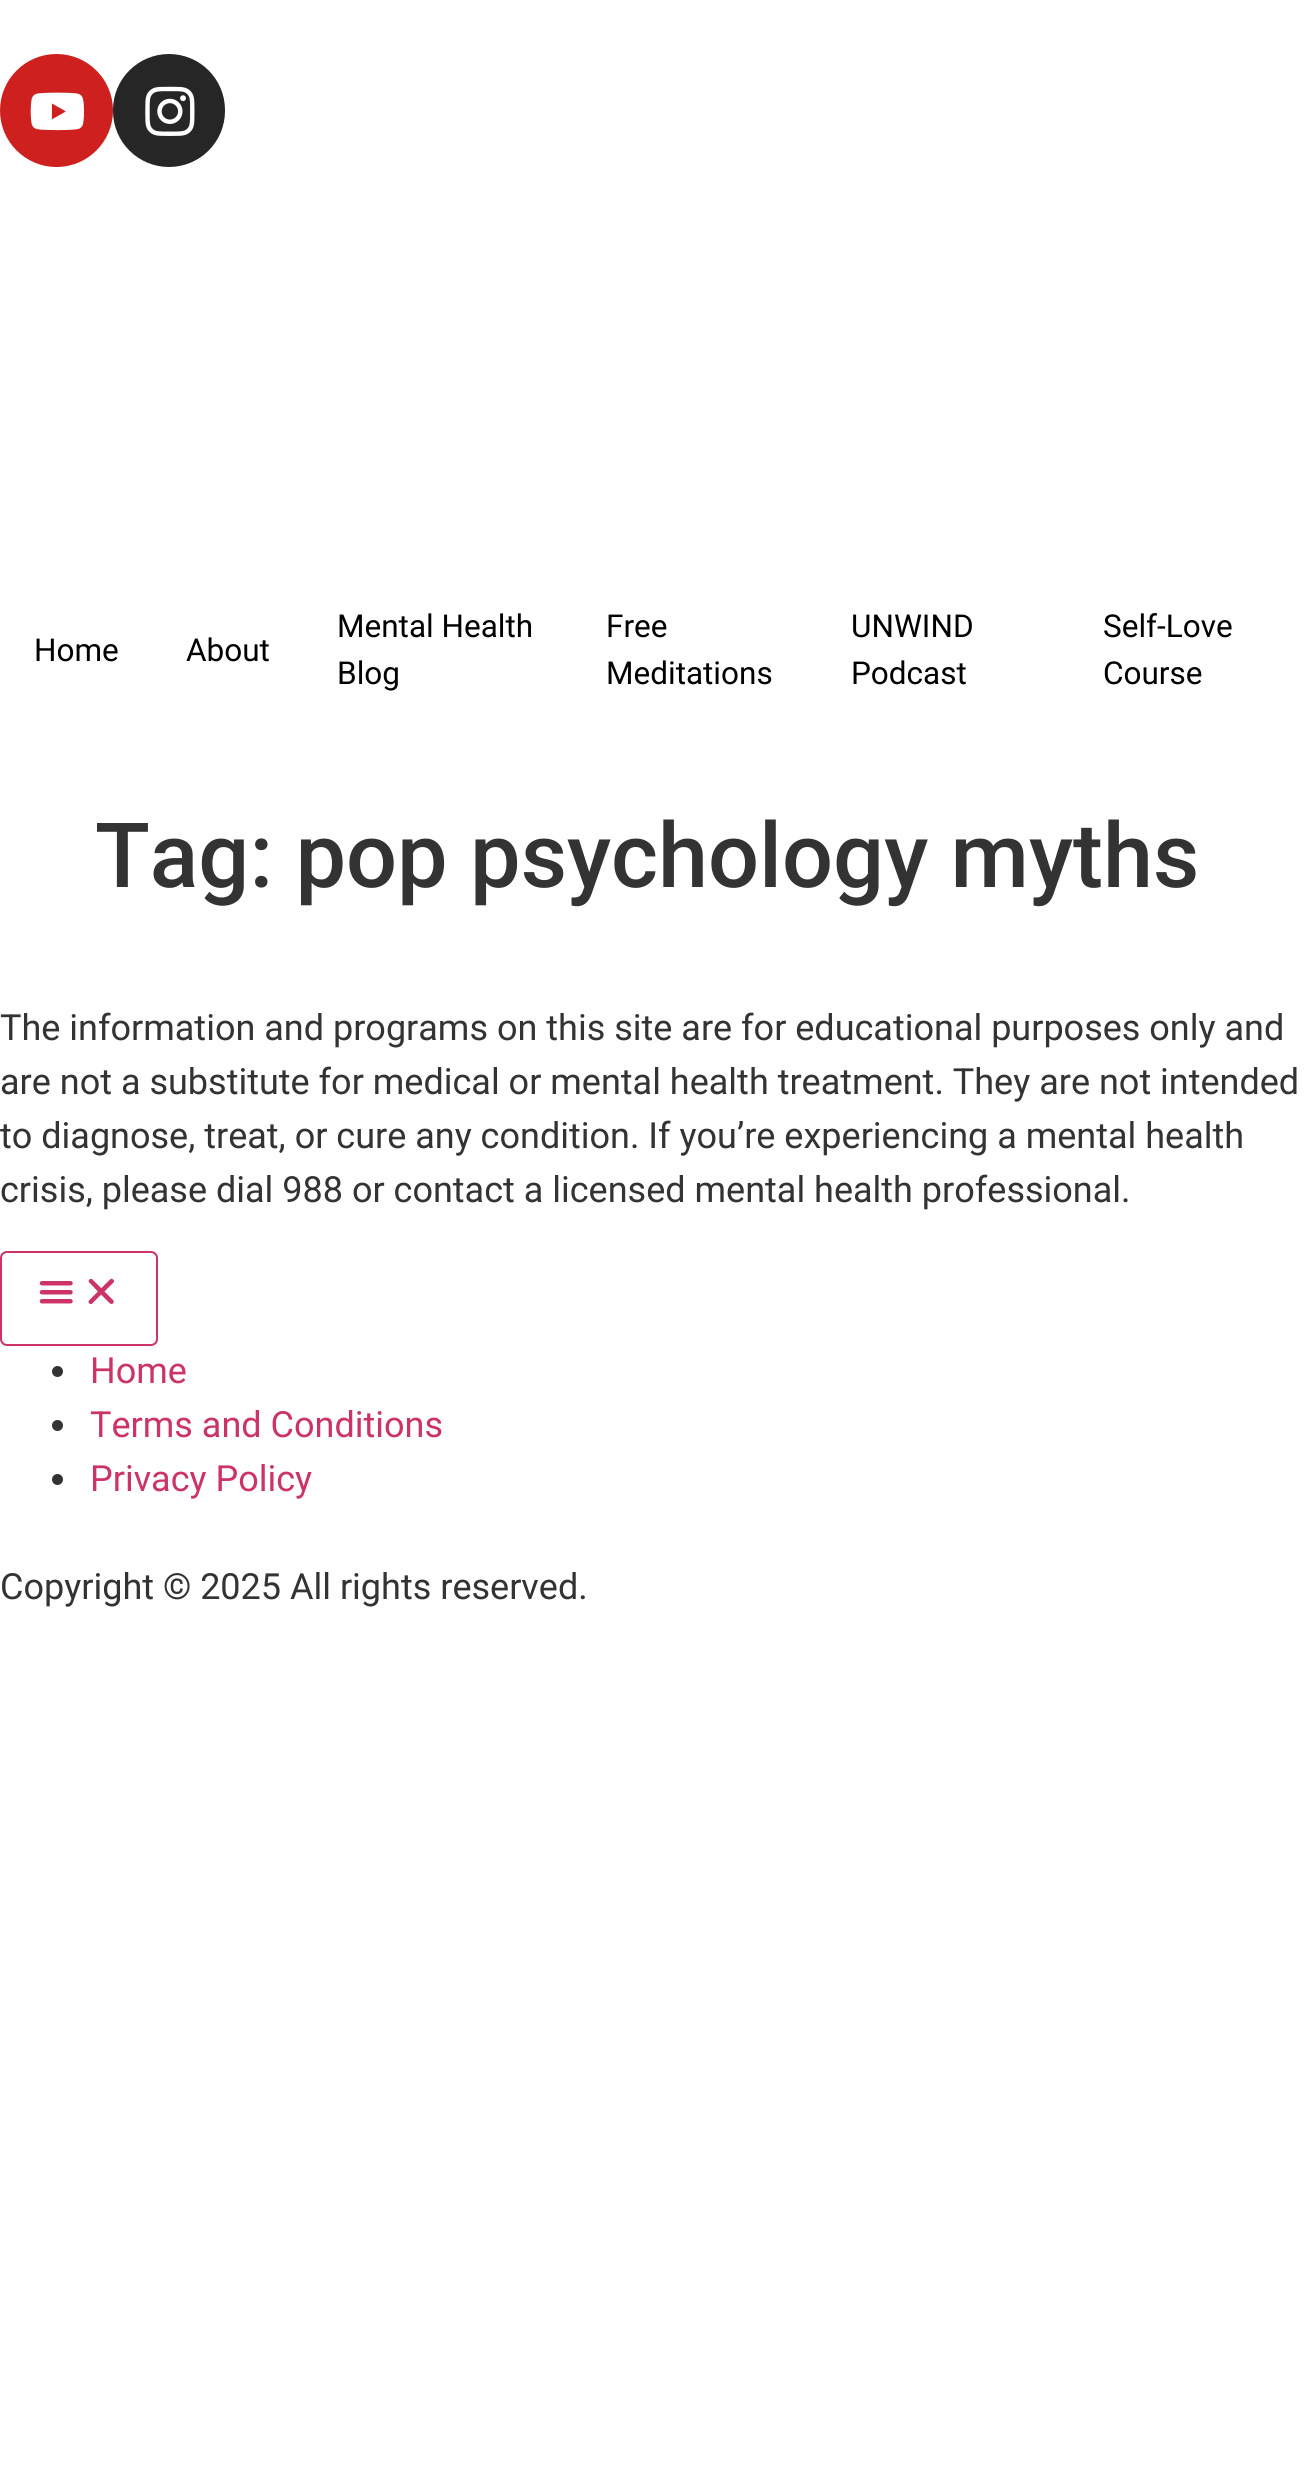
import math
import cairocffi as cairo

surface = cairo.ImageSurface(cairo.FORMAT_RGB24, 1314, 2467)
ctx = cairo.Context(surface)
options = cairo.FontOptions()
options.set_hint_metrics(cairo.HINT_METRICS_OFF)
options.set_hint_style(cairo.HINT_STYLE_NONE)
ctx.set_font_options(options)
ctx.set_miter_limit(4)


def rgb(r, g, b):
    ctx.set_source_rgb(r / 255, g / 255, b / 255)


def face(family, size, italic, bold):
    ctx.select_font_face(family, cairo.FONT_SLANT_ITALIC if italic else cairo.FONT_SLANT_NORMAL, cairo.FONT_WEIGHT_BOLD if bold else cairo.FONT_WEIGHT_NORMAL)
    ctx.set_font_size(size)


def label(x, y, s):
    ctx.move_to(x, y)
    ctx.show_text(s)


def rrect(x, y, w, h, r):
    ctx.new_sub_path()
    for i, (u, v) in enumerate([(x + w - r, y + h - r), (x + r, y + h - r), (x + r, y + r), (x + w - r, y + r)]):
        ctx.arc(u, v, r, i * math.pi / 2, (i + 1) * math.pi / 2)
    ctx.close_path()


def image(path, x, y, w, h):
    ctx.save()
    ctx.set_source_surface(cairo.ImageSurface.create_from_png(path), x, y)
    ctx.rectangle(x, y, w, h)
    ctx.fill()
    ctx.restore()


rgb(255, 255, 255)
ctx.paint()
rgb(205, 32, 31)
ctx.arc(56.5, 110.5, 56.5, 0, 2 * math.pi)
ctx.fill()
image('image0.png', 30, 92, 55, 39)
rgb(38, 38, 38)
rrect(113, 54, 112, 113, 56)
ctx.fill()
image('image1.png', 145, 86, 50, 50)
face('Roboto', 31.5, 0, 0)
rgb(0, 0, 0)
label(34, 661, 'Home')
label(186, 661, 'About')
label(337, 637, 'Mental Health')
label(337, 684, 'Blog')
label(606, 637, 'Free')
label(606, 684, 'Meditations')
label(851, 637, 'UNWIND')
label(851, 684, 'Podcast')
label(1103, 637, 'Self-Love')
label(1103, 684, 'Course')
face('Roboto Medium', 90, 0, 0)
rgb(51, 51, 51)
label(95, 887, 'Tag: pop psychology myths')
face('Roboto', 36, 0, 0)
label(0, 1040, 'The information and programs on this site are for educational purposes only and')
label(0, 1094, 'are not a substitute for medical or mental health treatment. They are not intended')
label(0, 1148, 'to diagnose, treat, or cure any condition. If you’re experiencing a mental health')
label(0, 1202, 'crisis, please dial 988 or contact a licensed mental health professional.')
rrect(1, 1252, 156, 93, 6)
rgb(204, 51, 102)
ctx.stroke()
image('image2.png', 39, 1281, 34, 23)
image('image3.png', 88, 1278, 26, 27)
rgb(51, 51, 51)
ctx.arc(57.5, 1371.5, 5.5, 0, 2 * math.pi)
ctx.fill()
rgb(204, 51, 102)
label(90, 1383, 'Home')
rgb(51, 51, 51)
ctx.new_path()
ctx.arc(57.5, 1425.5, 5.5, 0, 2 * math.pi)
ctx.fill()
rgb(204, 51, 102)
label(90, 1437, 'Terms and Conditions')
rgb(51, 51, 51)
ctx.new_path()
ctx.arc(57.5, 1479.5, 5.5, 0, 2 * math.pi)
ctx.fill()
rgb(204, 51, 102)
label(90, 1491, 'Privacy Policy')
rgb(51, 51, 51)
label(0, 1599, 'Copyright © 2025 All rights reserved.')
surface.write_to_png('render.png')
